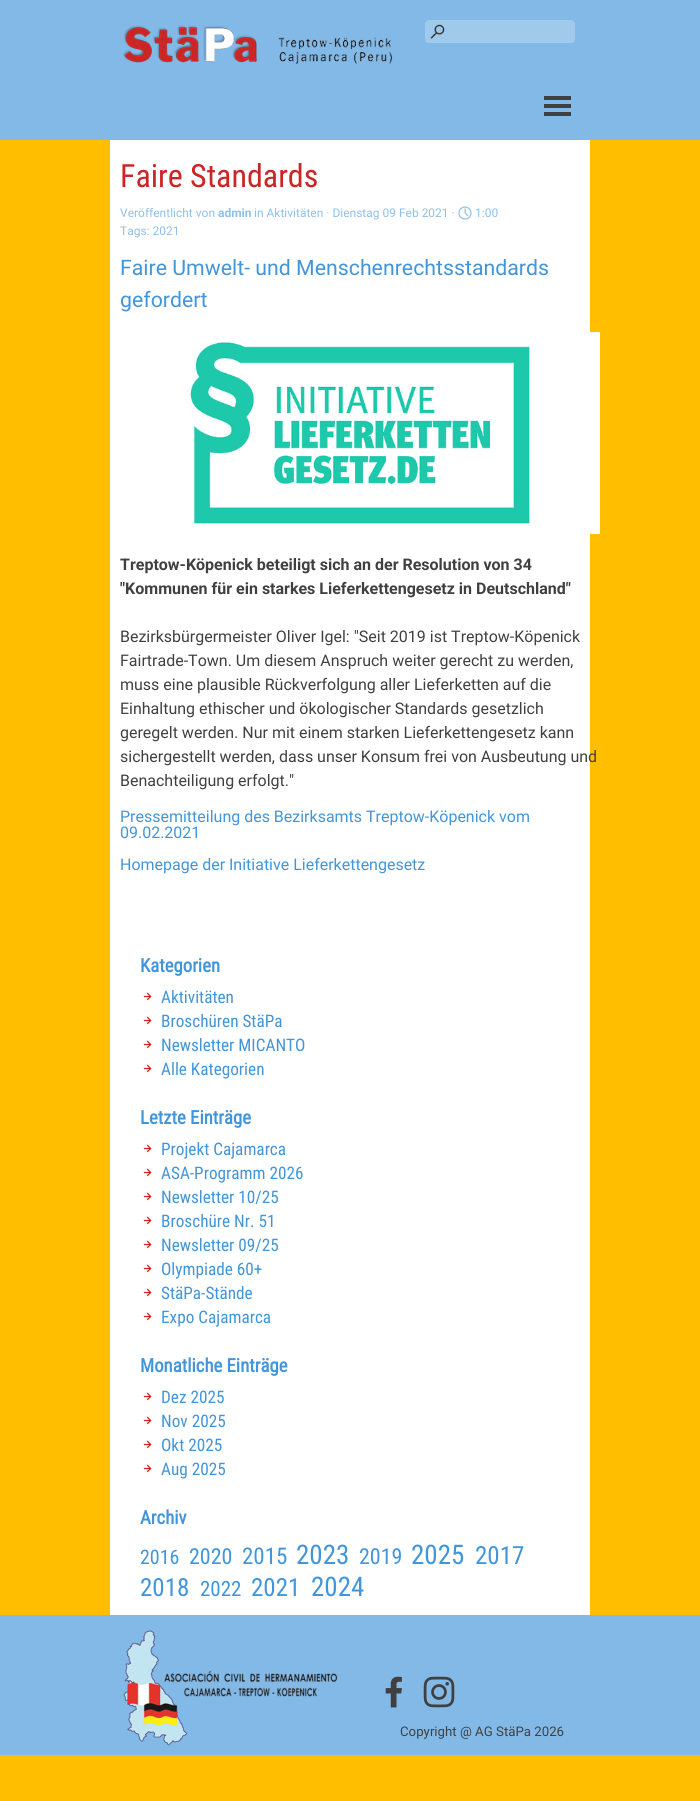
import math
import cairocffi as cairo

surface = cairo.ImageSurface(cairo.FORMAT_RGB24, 700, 1801)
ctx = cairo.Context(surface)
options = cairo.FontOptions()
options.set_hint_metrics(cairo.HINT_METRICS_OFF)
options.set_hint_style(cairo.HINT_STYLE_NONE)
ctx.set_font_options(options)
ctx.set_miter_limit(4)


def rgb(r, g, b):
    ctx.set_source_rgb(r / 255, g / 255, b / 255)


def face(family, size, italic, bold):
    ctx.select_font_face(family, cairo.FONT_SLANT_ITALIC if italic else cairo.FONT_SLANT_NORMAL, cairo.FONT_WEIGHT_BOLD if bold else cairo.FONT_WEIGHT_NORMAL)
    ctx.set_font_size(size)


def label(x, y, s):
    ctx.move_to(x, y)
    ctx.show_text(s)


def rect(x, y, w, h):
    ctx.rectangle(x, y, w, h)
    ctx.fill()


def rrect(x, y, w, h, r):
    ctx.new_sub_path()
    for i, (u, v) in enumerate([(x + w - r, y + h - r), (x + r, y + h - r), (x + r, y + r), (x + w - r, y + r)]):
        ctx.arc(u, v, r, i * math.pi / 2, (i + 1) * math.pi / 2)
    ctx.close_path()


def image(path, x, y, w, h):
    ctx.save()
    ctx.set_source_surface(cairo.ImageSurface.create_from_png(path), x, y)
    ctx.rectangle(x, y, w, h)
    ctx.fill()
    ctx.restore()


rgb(255, 191, 0)
ctx.paint()
rgb(131, 185, 231)
rect(0, 0, 700, 140)
image('image0.png', 123, 25, 270, 40)
rgb(159, 202, 236)
rrect(425, 20, 150, 23, 4)
ctx.fill()
image('image1.png', 430, 24, 15, 15)
rgb(64, 64, 64)
rect(544, 96, 27, 4)
rect(544, 104, 27, 4)
rect(544, 112, 27, 4)
rgb(255, 255, 255)
rect(110, 140, 480, 1475)
face('Roboto Condensed', 32, 0, 0)
rgb(201, 38, 37)
label(120, 187, 'Faire Standards')
face('Roboto', 12, 0, 0)
rgb(142, 192, 234)
label(120, 217, 'Veröffentlicht von')
face('Roboto', 12, 0, 1)
label(218, 217, 'admin')
face('Roboto', 12, 0, 0)
label(254, 217, 'in Aktivitäten · Dienstag 09 Feb 2021 ·')
image('image2.png', 458, 206, 14, 14)
label(475, 217, '1:00')
label(120, 235, 'Tags: 2021')
face('Roboto', 21.3, 0, 0)
rgb(65, 149, 218)
label(120, 275, 'Faire Umwelt- und Menschenrechtsstandards')
label(120, 307, 'gefordert')
image('image3.png', 190, 332, 410, 202)
face('Roboto', 16, 0, 1)
rgb(64, 64, 64)
label(120, 570, 'Treptow-Köpenick beteiligt sich an der Resolution von 34')
label(120, 594, '"Kommunen für ein starkes Lieferkettengesetz in Deutschland"')
face('Roboto', 16, 0, 0)
label(120, 642, 'Bezirksbürgermeister Oliver Igel: "Seit 2019 ist Treptow-Köpenick')
label(120, 666, 'Fairtrade-Town. Um diesem Anspruch weiter gerecht zu werden,')
label(120, 690, 'muss eine plausible Rückverfolgung aller Lieferketten auf die')
label(120, 714, 'Einhaltung ethischer und ökologischer Standards gesetzlich')
label(120, 738, 'geregelt werden. Nur mit einem starken Lieferkettengesetz kann')
label(120, 762, 'sichergestellt werden, dass unser Konsum frei von Ausbeutung und')
label(120, 786, 'Benachteiligung erfolgt."')
rgb(65, 149, 218)
label(120, 822, 'Pressemitteilung des Bezirksamts Treptow-Köpenick vom')
label(120, 838, '09.02.2021')
label(120, 870, 'Homepage der Initiative Lieferkettengesetz')
face('Roboto Condensed', 18.75, 0, 1)
label(140, 972, 'Kategorien')
image('image4.png', 143, 992, 9, 9)
face('Roboto Condensed', 17.25, 0, 0)
label(161, 1003, 'Aktivitäten')
image('image4.png', 143, 1016, 9, 9)
label(161, 1027, 'Broschüren StäPa')
image('image4.png', 143, 1040, 9, 9)
label(161, 1051, 'Newsletter MICANTO')
image('image4.png', 143, 1064, 9, 9)
label(161, 1075, 'Alle Kategorien')
face('Roboto Condensed', 18.75, 0, 1)
label(140, 1124, 'Letzte Einträge')
image('image4.png', 143, 1144, 9, 9)
face('Roboto Condensed', 17.25, 0, 0)
label(161, 1155, 'Projekt Cajamarca')
image('image4.png', 143, 1168, 9, 9)
label(161, 1179, 'ASA-Programm 2026')
image('image4.png', 143, 1192, 9, 9)
label(161, 1203, 'Newsletter 10/25')
image('image4.png', 143, 1216, 9, 9)
label(161, 1227, 'Broschüre Nr. 51')
image('image4.png', 143, 1240, 9, 9)
label(161, 1251, 'Newsletter 09/25')
image('image4.png', 143, 1264, 9, 9)
label(161, 1275, 'Olympiade 60+')
image('image4.png', 143, 1288, 9, 9)
label(161, 1299, 'StäPa-Stände')
image('image4.png', 143, 1312, 9, 9)
label(161, 1323, 'Expo Cajamarca')
face('Roboto Condensed', 18.75, 0, 1)
label(140, 1372, 'Monatliche Einträge')
image('image4.png', 143, 1392, 9, 9)
face('Roboto Condensed', 17.25, 0, 0)
label(161, 1403, 'Dez 2025')
image('image4.png', 143, 1416, 9, 9)
label(161, 1427, 'Nov 2025')
image('image4.png', 143, 1440, 9, 9)
label(161, 1451, 'Okt 2025')
image('image4.png', 143, 1464, 9, 9)
label(161, 1475, 'Aug 2025')
face('Roboto Condensed', 18.75, 0, 1)
label(140, 1524, 'Archiv')
face('Roboto Condensed', 20, 0, 0)
label(140, 1564, '2016')
face('Roboto Condensed', 22, 0, 0)
label(189, 1564, '2020')
face('Roboto Condensed', 23, 0, 0)
label(242, 1564, '2015')
face('Roboto Condensed', 27, 0, 0)
label(296, 1564, '2023')
face('Roboto Condensed', 22, 0, 0)
label(359, 1564, '2019')
face('Roboto Condensed', 27, 0, 0)
label(411, 1564, '2025')
face('Roboto Condensed', 25, 0, 0)
label(475, 1564, '2017')
label(140, 1596, '2018')
face('Roboto Condensed', 21, 0, 0)
label(200, 1596, '2022')
face('Roboto Condensed', 25, 0, 0)
label(251, 1596, '2021')
face('Roboto Condensed', 27, 0, 0)
label(311, 1596, '2024')
rgb(131, 185, 231)
rect(0, 1615, 700, 140)
image('image5.png', 123, 1630, 215, 116)
image('image6.png', 385, 1676, 17, 32)
image('image7.png', 423, 1676, 32, 32)
face('Roboto', 13.25, 0, 0)
rgb(64, 64, 64)
label(400, 1736, 'Copyright @ AG StäPa 2026')
surface.write_to_png('render.png')
